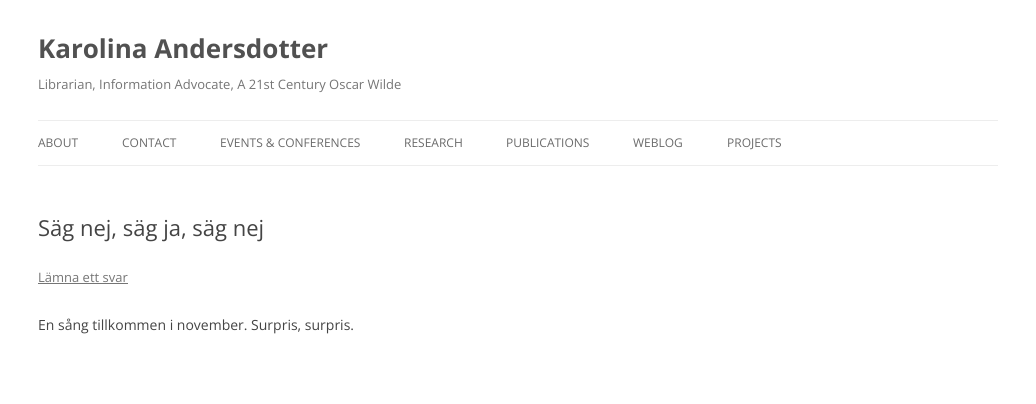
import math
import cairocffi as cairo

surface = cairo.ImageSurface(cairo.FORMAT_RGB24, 1036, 404)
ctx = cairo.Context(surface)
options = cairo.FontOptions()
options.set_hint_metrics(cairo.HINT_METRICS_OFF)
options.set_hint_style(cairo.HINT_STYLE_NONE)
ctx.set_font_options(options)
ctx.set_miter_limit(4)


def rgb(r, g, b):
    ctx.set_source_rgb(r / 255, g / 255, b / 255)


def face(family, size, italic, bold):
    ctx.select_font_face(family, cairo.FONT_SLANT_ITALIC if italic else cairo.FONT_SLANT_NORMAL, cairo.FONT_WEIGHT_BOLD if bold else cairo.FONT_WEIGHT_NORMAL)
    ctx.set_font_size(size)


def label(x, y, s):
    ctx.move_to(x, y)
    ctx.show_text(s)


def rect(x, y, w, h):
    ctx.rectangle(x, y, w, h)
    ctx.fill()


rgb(255, 255, 255)
ctx.paint()
face('Open Sans', 26, 0, 1)
rgb(81, 81, 81)
label(38, 58, 'Karolina Andersdotter')
face('Open Sans', 13, 0, 0)
rgb(117, 117, 117)
label(38, 89, 'Librarian, Information Advocate, A 21st Century Oscar Wilde')
rgb(237, 237, 237)
rect(38, 120, 960, 1)
rect(38, 165, 960, 1)
face('Open Sans', 12, 0, 0)
rgb(106, 106, 106)
label(38, 147, 'ABOUT')
label(122, 147, 'CONTACT')
label(220, 147, 'EVENTS & CONFERENCES')
label(404, 147, 'RESEARCH')
label(506, 147, 'PUBLICATIONS')
label(633, 147, 'WEBLOG')
label(727, 147, 'PROJECTS')
face('Open Sans', 22, 0, 0)
rgb(68, 68, 68)
label(38, 236, 'Säg nej, säg ja, säg nej')
face('Open Sans', 13, 0, 0)
rgb(117, 117, 117)
label(38, 282, 'Lämna ett svar')
rect(38, 283, 90, 1)
face('Open Sans', 14, 0, 0)
rgb(68, 68, 68)
label(38, 330, 'En sång tillkommen i november. Surpris, surpris.')
surface.write_to_png('render.png')
